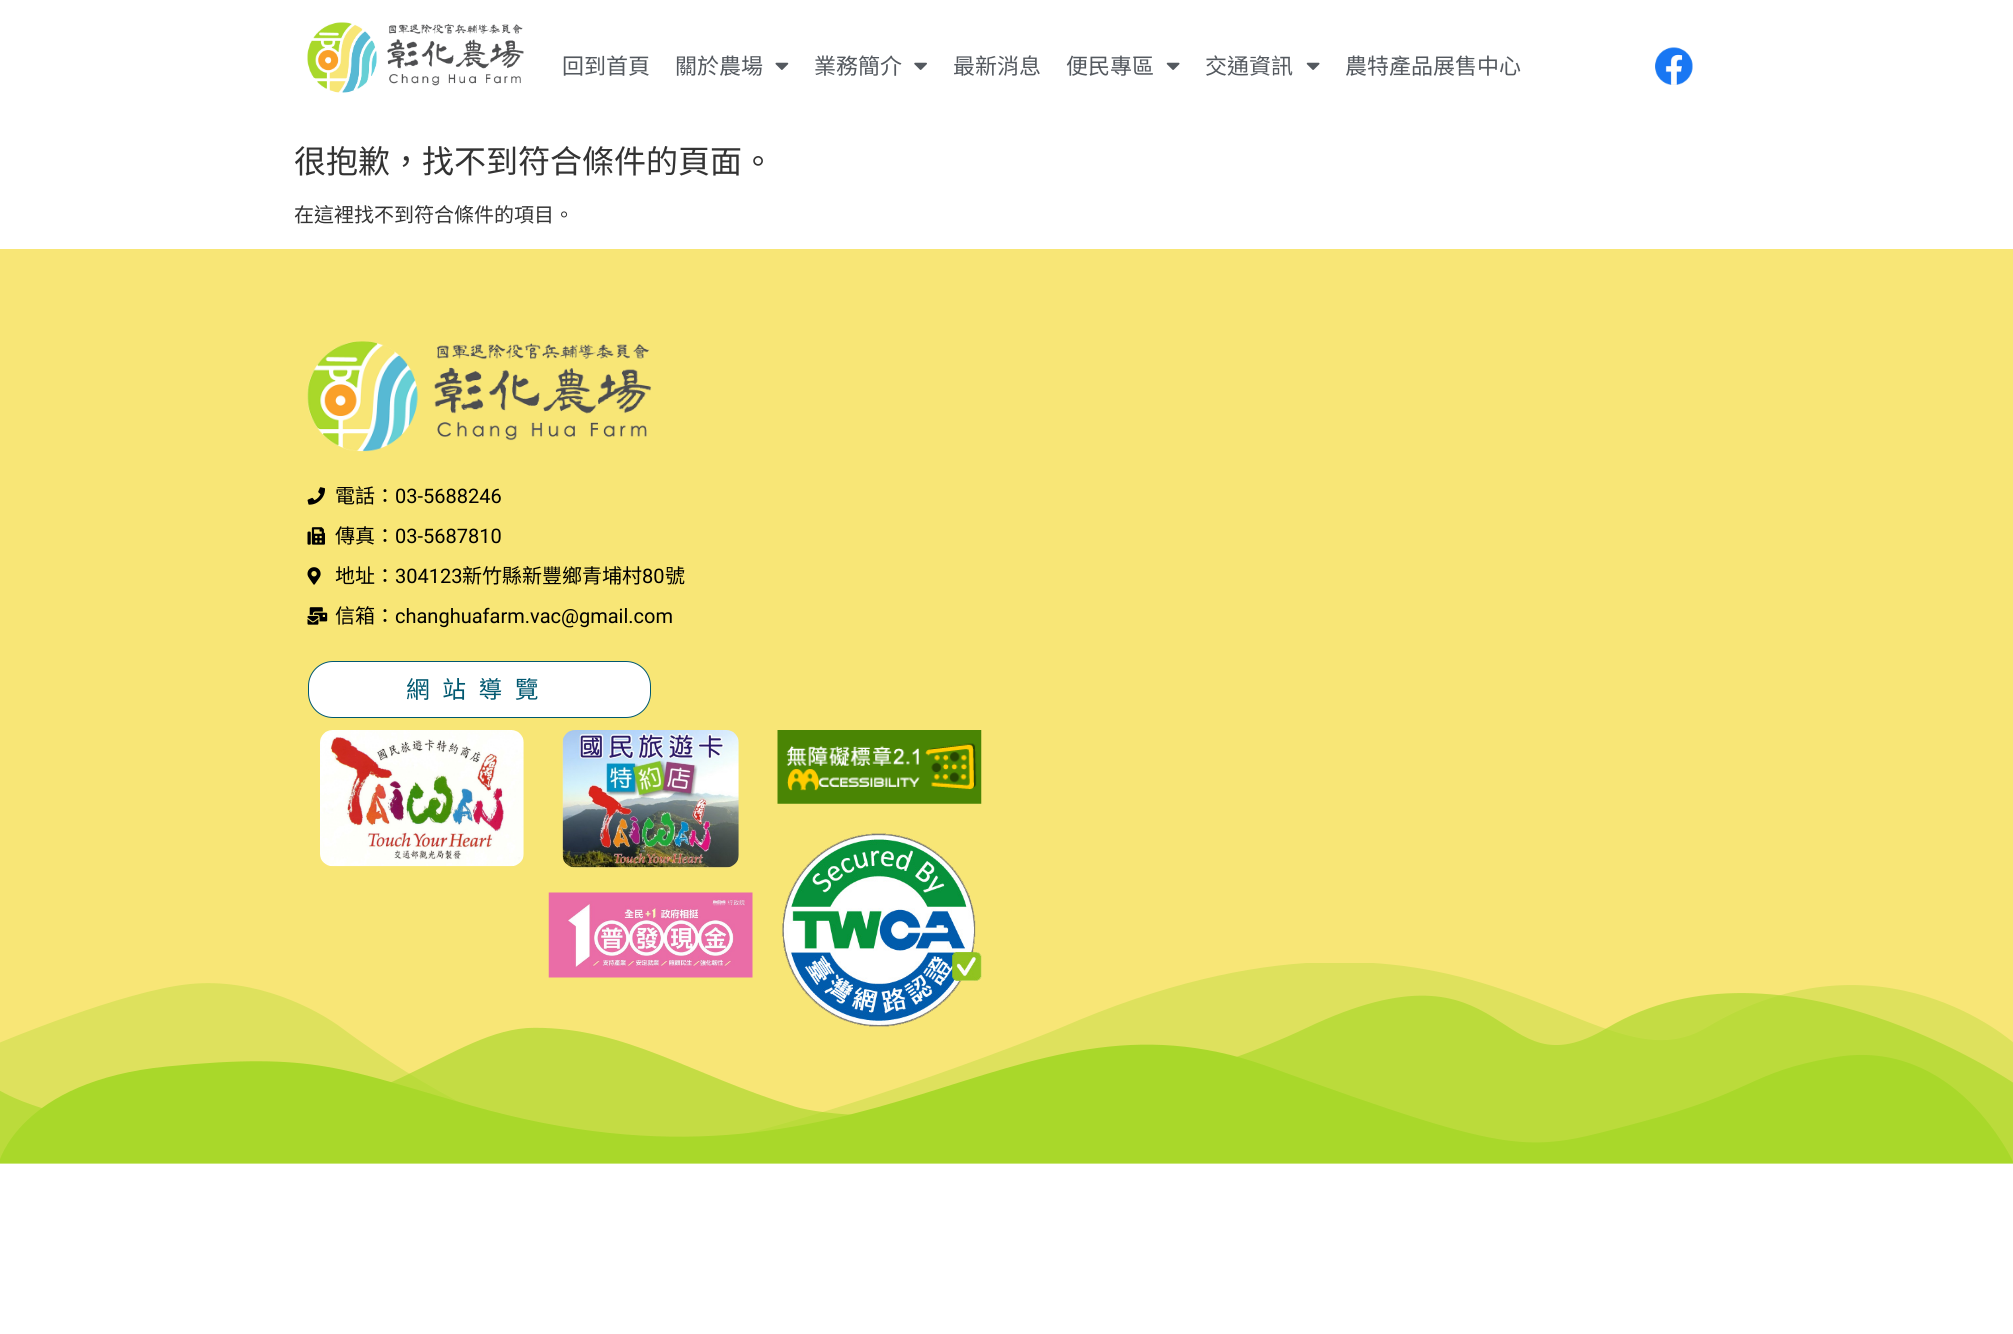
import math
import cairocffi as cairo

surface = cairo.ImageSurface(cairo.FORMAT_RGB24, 2013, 1334)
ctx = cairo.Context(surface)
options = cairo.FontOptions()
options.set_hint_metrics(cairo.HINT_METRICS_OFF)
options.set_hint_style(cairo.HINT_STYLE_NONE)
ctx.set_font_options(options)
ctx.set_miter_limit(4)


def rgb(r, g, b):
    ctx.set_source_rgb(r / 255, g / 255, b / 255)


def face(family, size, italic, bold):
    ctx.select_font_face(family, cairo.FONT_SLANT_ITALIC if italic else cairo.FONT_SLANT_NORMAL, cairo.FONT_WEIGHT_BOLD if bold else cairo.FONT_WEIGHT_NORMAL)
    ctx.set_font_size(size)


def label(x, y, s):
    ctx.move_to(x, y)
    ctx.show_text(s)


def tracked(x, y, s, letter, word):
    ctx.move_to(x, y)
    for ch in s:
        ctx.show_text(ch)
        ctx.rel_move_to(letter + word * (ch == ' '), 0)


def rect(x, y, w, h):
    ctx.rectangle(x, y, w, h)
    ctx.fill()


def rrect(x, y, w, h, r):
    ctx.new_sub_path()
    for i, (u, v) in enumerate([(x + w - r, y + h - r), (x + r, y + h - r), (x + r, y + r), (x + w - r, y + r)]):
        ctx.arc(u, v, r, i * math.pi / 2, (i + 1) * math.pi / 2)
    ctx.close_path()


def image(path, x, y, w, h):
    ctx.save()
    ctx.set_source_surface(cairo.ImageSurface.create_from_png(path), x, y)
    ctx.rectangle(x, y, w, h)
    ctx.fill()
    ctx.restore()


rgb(255, 255, 255)
ctx.paint()
image('image0.png', 307, 22, 217, 71)
face('Noto Sans CJK TC', 22, 0, 0)
rgb(84, 89, 95)
label(562, 74, '回到首頁')
label(675, 74, '關於農場')
image('image1.png', 775, 62, 14, 8)
label(814, 74, '業務簡介')
image('image2.png', 914, 62, 13, 8)
label(953, 74, '最新消息')
label(1066, 74, '便民專區')
image('image3.png', 1166, 62, 14, 8)
label(1205, 74, '交通資訊')
image('image3.png', 1306, 62, 14, 8)
label(1345, 74, '農特產品展售中心')
image('image4.png', 1655, 47, 38, 38)
face('Noto Sans CJK TC', 32, 0, 0)
rgb(51, 51, 51)
label(294, 173, '很抱歉，找不到符合條件的頁面。')
face('Noto Sans CJK TC', 20, 0, 0)
label(294, 222, '在這裡找不到符合條件的項目。')
rgb(248, 230, 118)
rect(0, 249, 2013, 913)
image('image5.png', 307, 341, 345, 111)
image('image6.png', 307, 487, 18, 18)
rgb(0, 0, 0)
label(335, 503, '電話：')
face('Roboto', 20, 0, 0)
label(395, 503, '03-5688246')
image('image7.png', 307, 527, 18, 18)
face('Noto Sans CJK TC', 20, 0, 0)
label(335, 543, '傳真：')
face('Roboto', 20, 0, 0)
label(395, 543, '03-5687810')
image('image8.png', 307, 567, 14, 18)
face('Noto Sans CJK TC', 20, 0, 0)
label(335, 583, '地址：')
face('Roboto', 20, 0, 0)
label(395, 583, '304123')
face('Noto Sans CJK TC', 20, 0, 0)
label(462, 583, '新竹縣新豐鄉青埔村')
face('Roboto', 20, 0, 0)
label(642, 583, '80')
face('Noto Sans CJK TC', 20, 0, 0)
label(665, 583, '號')
image('image9.png', 307, 607, 21, 18)
label(335, 623, '信箱：')
face('Roboto', 20, 0, 0)
label(395, 623, 'changhuafarm.vac@gmail.com')
rgb(255, 255, 255)
rrect(308.5, 661.5, 342, 56, 24.5)
ctx.fill_preserve()
rgb(0, 88, 112)
ctx.set_line_width(1)
ctx.stroke()
face('Noto Sans CJK TC', 23.75, 0, 0)
tracked(406, 698, '網站導覽', 12.5, 0)
image('image10.png', 320, 730, 204, 137)
image('image11.png', 562, 730, 177, 138)
image('image15.png', 0, 963, 2013, 201)
image('image12.png', 548, 892, 205, 86)
image('image13.png', 777, 730, 205, 74)
image('image14.png', 782, 833, 200, 194)
surface.write_to_png('render.png')
